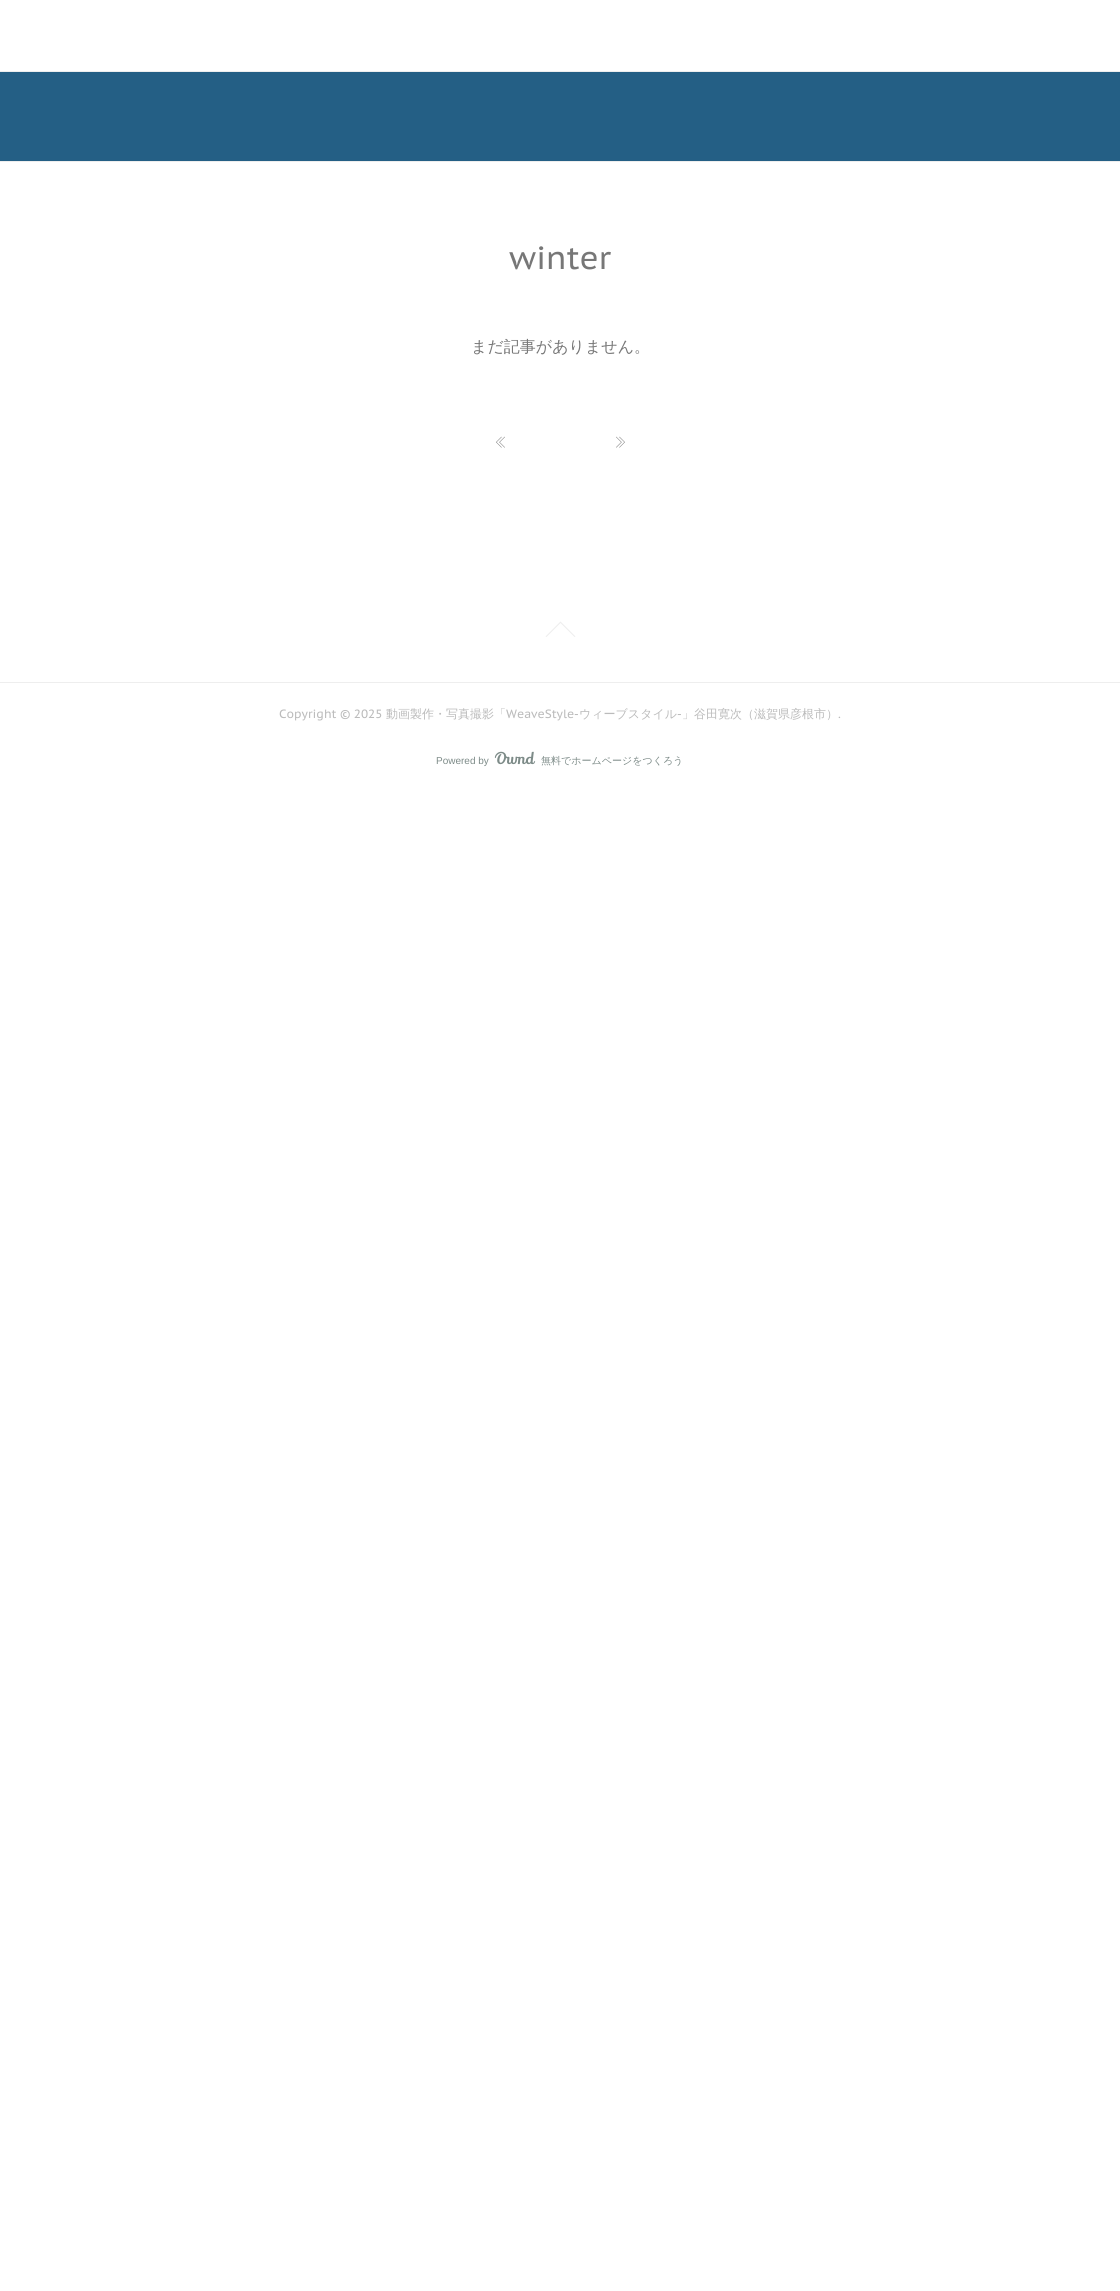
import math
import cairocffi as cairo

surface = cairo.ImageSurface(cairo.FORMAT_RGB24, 1120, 2291)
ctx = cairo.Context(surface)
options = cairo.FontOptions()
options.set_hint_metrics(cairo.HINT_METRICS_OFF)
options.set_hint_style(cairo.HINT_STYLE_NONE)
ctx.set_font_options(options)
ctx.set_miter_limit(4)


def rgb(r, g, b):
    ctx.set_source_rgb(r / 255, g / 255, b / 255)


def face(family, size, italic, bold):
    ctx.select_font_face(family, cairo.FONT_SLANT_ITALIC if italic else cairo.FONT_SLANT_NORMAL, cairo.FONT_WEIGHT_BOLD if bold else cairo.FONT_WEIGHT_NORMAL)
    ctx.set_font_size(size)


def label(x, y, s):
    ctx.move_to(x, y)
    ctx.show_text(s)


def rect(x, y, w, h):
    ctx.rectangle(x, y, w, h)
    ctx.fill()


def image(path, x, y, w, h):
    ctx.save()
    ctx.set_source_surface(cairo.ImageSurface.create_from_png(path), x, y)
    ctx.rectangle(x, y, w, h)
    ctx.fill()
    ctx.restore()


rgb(255, 255, 255)
ctx.paint()
rgb(238, 238, 238)
rect(0, 71, 1120, 1)
rgb(36, 95, 133)
rect(0, 72, 1120, 89)
rgb(238, 238, 238)
rect(0, 161, 1120, 1)
face('PT Sans Caption', 32, 0, 0)
rgb(119, 119, 119)
label(509, 269, 'winter')
face('WenQuanYi Zen Hei Medium', 16, 0, 0)
label(471, 352, 'まだ記事がありません。')
image('image0.png', 496, 436, 9, 12)
image('image1.png', 616, 436, 9, 12)
rgb(238, 238, 238)
ctx.new_path()
ctx.move_to(545.5, 636.5)
ctx.line_to(560.5, 621.5)
ctx.line_to(561, 622.5)
ctx.line_to(546.5, 637)
ctx.close_path()
ctx.fill()
ctx.new_path()
ctx.move_to(560, 622.5)
ctx.line_to(560.5, 621.5)
ctx.line_to(575.5, 636.5)
ctx.line_to(574.5, 637)
ctx.close_path()
ctx.fill()
rect(0, 682, 1120, 1)
face('PT Sans Caption', 12, 0, 0)
rgb(187, 187, 187)
label(279, 718, 'Copyright © 2025')
face('WenQuanYi Zen Hei Medium', 12, 0, 0)
label(386, 718, '動画製作・写真撮影「')
face('PT Sans Caption', 12, 0, 0)
label(506, 718, 'WeaveStyle-')
face('WenQuanYi Zen Hei Medium', 12, 0, 0)
label(579, 718, 'ウィーブスタイル')
face('PT Sans Caption', 12, 0, 0)
label(677, 718, '-')
face('WenQuanYi Zen Hei Medium', 12, 0, 0)
label(682, 718, '」谷田寛次（滋賀県彦根市）')
face('PT Sans Caption', 12, 0, 0)
label(838, 718, '.')
face('Liberation Sans', 10, 0, 0)
rgb(125, 139, 136)
label(436, 764, 'Powered by')
image('image2.png', 494, 751, 42, 14)
face('WenQuanYi Zen Hei Medium', 10, 0, 0)
label(541, 764, '無料でホームページをつくろう')
surface.write_to_png('render.png')
